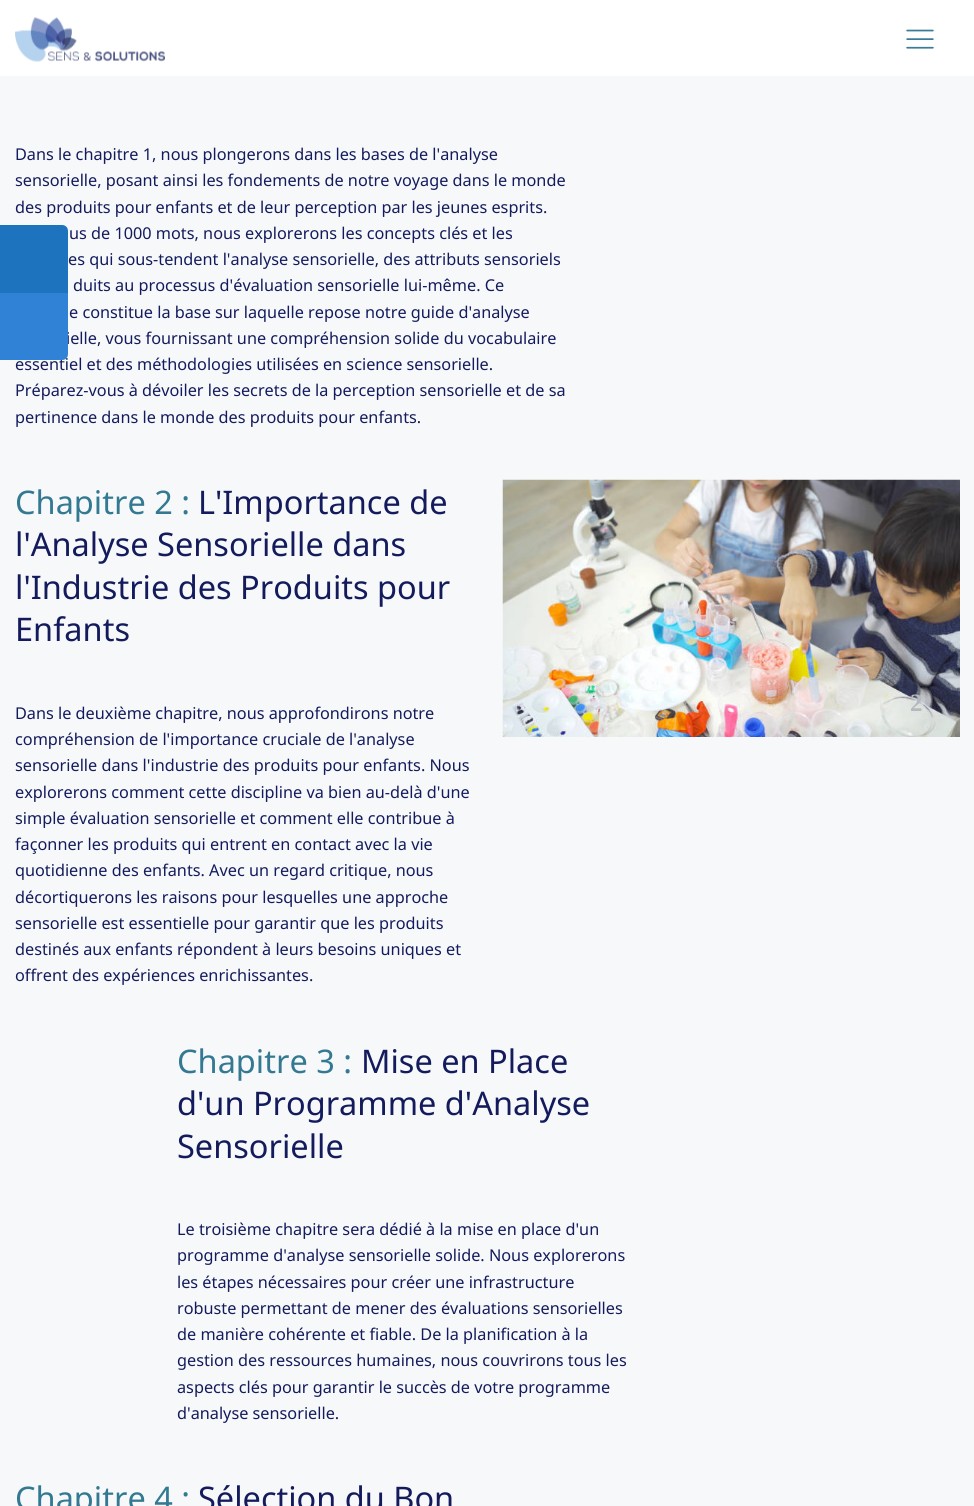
import math
import cairocffi as cairo

surface = cairo.ImageSurface(cairo.FORMAT_RGB24, 974, 1506)
ctx = cairo.Context(surface)
options = cairo.FontOptions()
options.set_hint_metrics(cairo.HINT_METRICS_OFF)
options.set_hint_style(cairo.HINT_STYLE_NONE)
ctx.set_font_options(options)
ctx.set_miter_limit(4)


def rgb(r, g, b):
    ctx.set_source_rgb(r / 255, g / 255, b / 255)


def face(family, size, italic, bold):
    ctx.select_font_face(family, cairo.FONT_SLANT_ITALIC if italic else cairo.FONT_SLANT_NORMAL, cairo.FONT_WEIGHT_BOLD if bold else cairo.FONT_WEIGHT_NORMAL)
    ctx.set_font_size(size)


def label(x, y, s):
    ctx.move_to(x, y)
    ctx.show_text(s)


def rect(x, y, w, h):
    ctx.rectangle(x, y, w, h)
    ctx.fill()


def image(path, x, y, w, h):
    ctx.save()
    ctx.set_source_surface(cairo.ImageSurface.create_from_png(path), x, y)
    ctx.rectangle(x, y, w, h)
    ctx.fill()
    ctx.restore()


rgb(247, 248, 250)
ctx.paint()
ctx.set_source_rgba(1, 1, 1, 0.97)
rect(0, 0, 974, 76)
image('image0.png', 15, 17, 150, 45)
image('image1.png', 906, 29, 28, 20)
face('Noto Sans', 16.25, 0, 0)
rgb(19, 27, 92)
label(15, 160, 'Dans le chapitre 1, nous plongerons dans les bases de l\'analyse')
label(15, 186, 'sensorielle, posant ainsi les fondements de notre voyage dans le monde')
label(15, 213, 'des produits pour enfants et de leur perception par les jeunes esprits.')
label(69, 239, 'us de 1000 mots, nous explorerons les concepts clés et les')
label(68, 265, 'es qui sous-tendent l\'analyse sensorielle, des attributs sensoriels')
label(73, 291, 'duits au processus d\'évaluation sensorielle lui-même. Ce')
label(69, 318, 'e constitue la base sur laquelle repose notre guide d\'analyse')
label(66, 344, 'ielle, vous fournissant une compréhension solide du vocabulaire')
label(15, 370, 'essentiel et des méthodologies utilisées en science sensorielle.')
label(15, 396, 'Préparez-vous à dévoiler les secrets de la perception sensorielle et de sa')
label(15, 423, 'pertinence dans le monde des produits pour enfants.')
face('Noto Sans', 32.5, 0, 0)
rgb(51, 121, 145)
label(15, 514, 'Chapitre 2 :')
rgb(19, 27, 92)
label(198, 514, 'L\'Importance de')
label(15, 556, 'l\'Analyse Sensorielle dans')
label(15, 599, 'l\'Industrie des Produits pour')
label(15, 641, 'Enfants')
face('Noto Sans', 16.25, 0, 0)
label(15, 719, 'Dans le deuxième chapitre, nous approfondirons notre')
label(15, 745, 'compréhension de l\'importance cruciale de l\'analyse')
label(15, 771, 'sensorielle dans l\'industrie des produits pour enfants. Nous')
label(15, 798, 'explorerons comment cette discipline va bien au-delà d\'une')
label(15, 824, 'simple évaluation sensorielle et comment elle contribue à')
label(15, 850, 'façonner les produits qui entrent en contact avec la vie')
label(15, 876, 'quotidienne des enfants. Avec un regard critique, nous')
label(15, 903, 'décortiquerons les raisons pour lesquelles une approche')
label(15, 929, 'sensorielle est essentielle pour garantir que les produits')
label(15, 955, 'destinés aux enfants répondent à leurs besoins uniques et')
label(15, 981, 'offrent des expériences enrichissantes.')
image('image2.png', 502, 479, 458, 258)
face('Noto Sans', 32.5, 0, 0)
rgb(51, 121, 145)
label(177, 1073, 'Chapitre 3 :')
rgb(19, 27, 92)
label(361, 1073, 'Mise en Place')
label(177, 1115, 'd\'un Programme d\'Analyse')
label(177, 1158, 'Sensorielle')
face('Noto Sans', 16.25, 0, 0)
label(177, 1235, 'Le troisième chapitre sera dédié à la mise en place d\'un')
label(177, 1261, 'programme d\'analyse sensorielle solide. Nous explorerons')
label(177, 1288, 'les étapes nécessaires pour créer une infrastructure')
label(177, 1314, 'robuste permettant de mener des évaluations sensorielles')
label(177, 1340, 'de manière cohérente et fiable. De la planification à la')
label(177, 1366, 'gestion des ressources humaines, nous couvrirons tous les')
label(177, 1393, 'aspects clés pour garantir le succès de votre programme')
label(177, 1419, 'd\'analyse sensorielle.')
face('Noto Sans', 32.5, 0, 0)
rgb(51, 121, 145)
label(15, 1510, 'Chapitre 4 :')
rgb(19, 27, 92)
label(198, 1510, 'Sélection du Bon')
rgb(30, 115, 190)
ctx.new_path()
ctx.move_to(0, 225)
ctx.line_to(62, 225)
ctx.curve_to(65.5, 225, 68, 227.5, 68, 231)
ctx.line_to(68, 293)
ctx.line_to(0, 293)
ctx.close_path()
ctx.fill()
rgb(47, 130, 214)
ctx.new_path()
ctx.move_to(0, 293)
ctx.line_to(68, 293)
ctx.line_to(68, 354)
ctx.curve_to(68, 357.5, 65.5, 360, 62, 360)
ctx.line_to(0, 360)
ctx.close_path()
ctx.fill()
face('Liberation Serif', 25, 0, 1)
rgb(181, 185, 189)
label(910, 711, '2')
surface.write_to_png('render.png')
